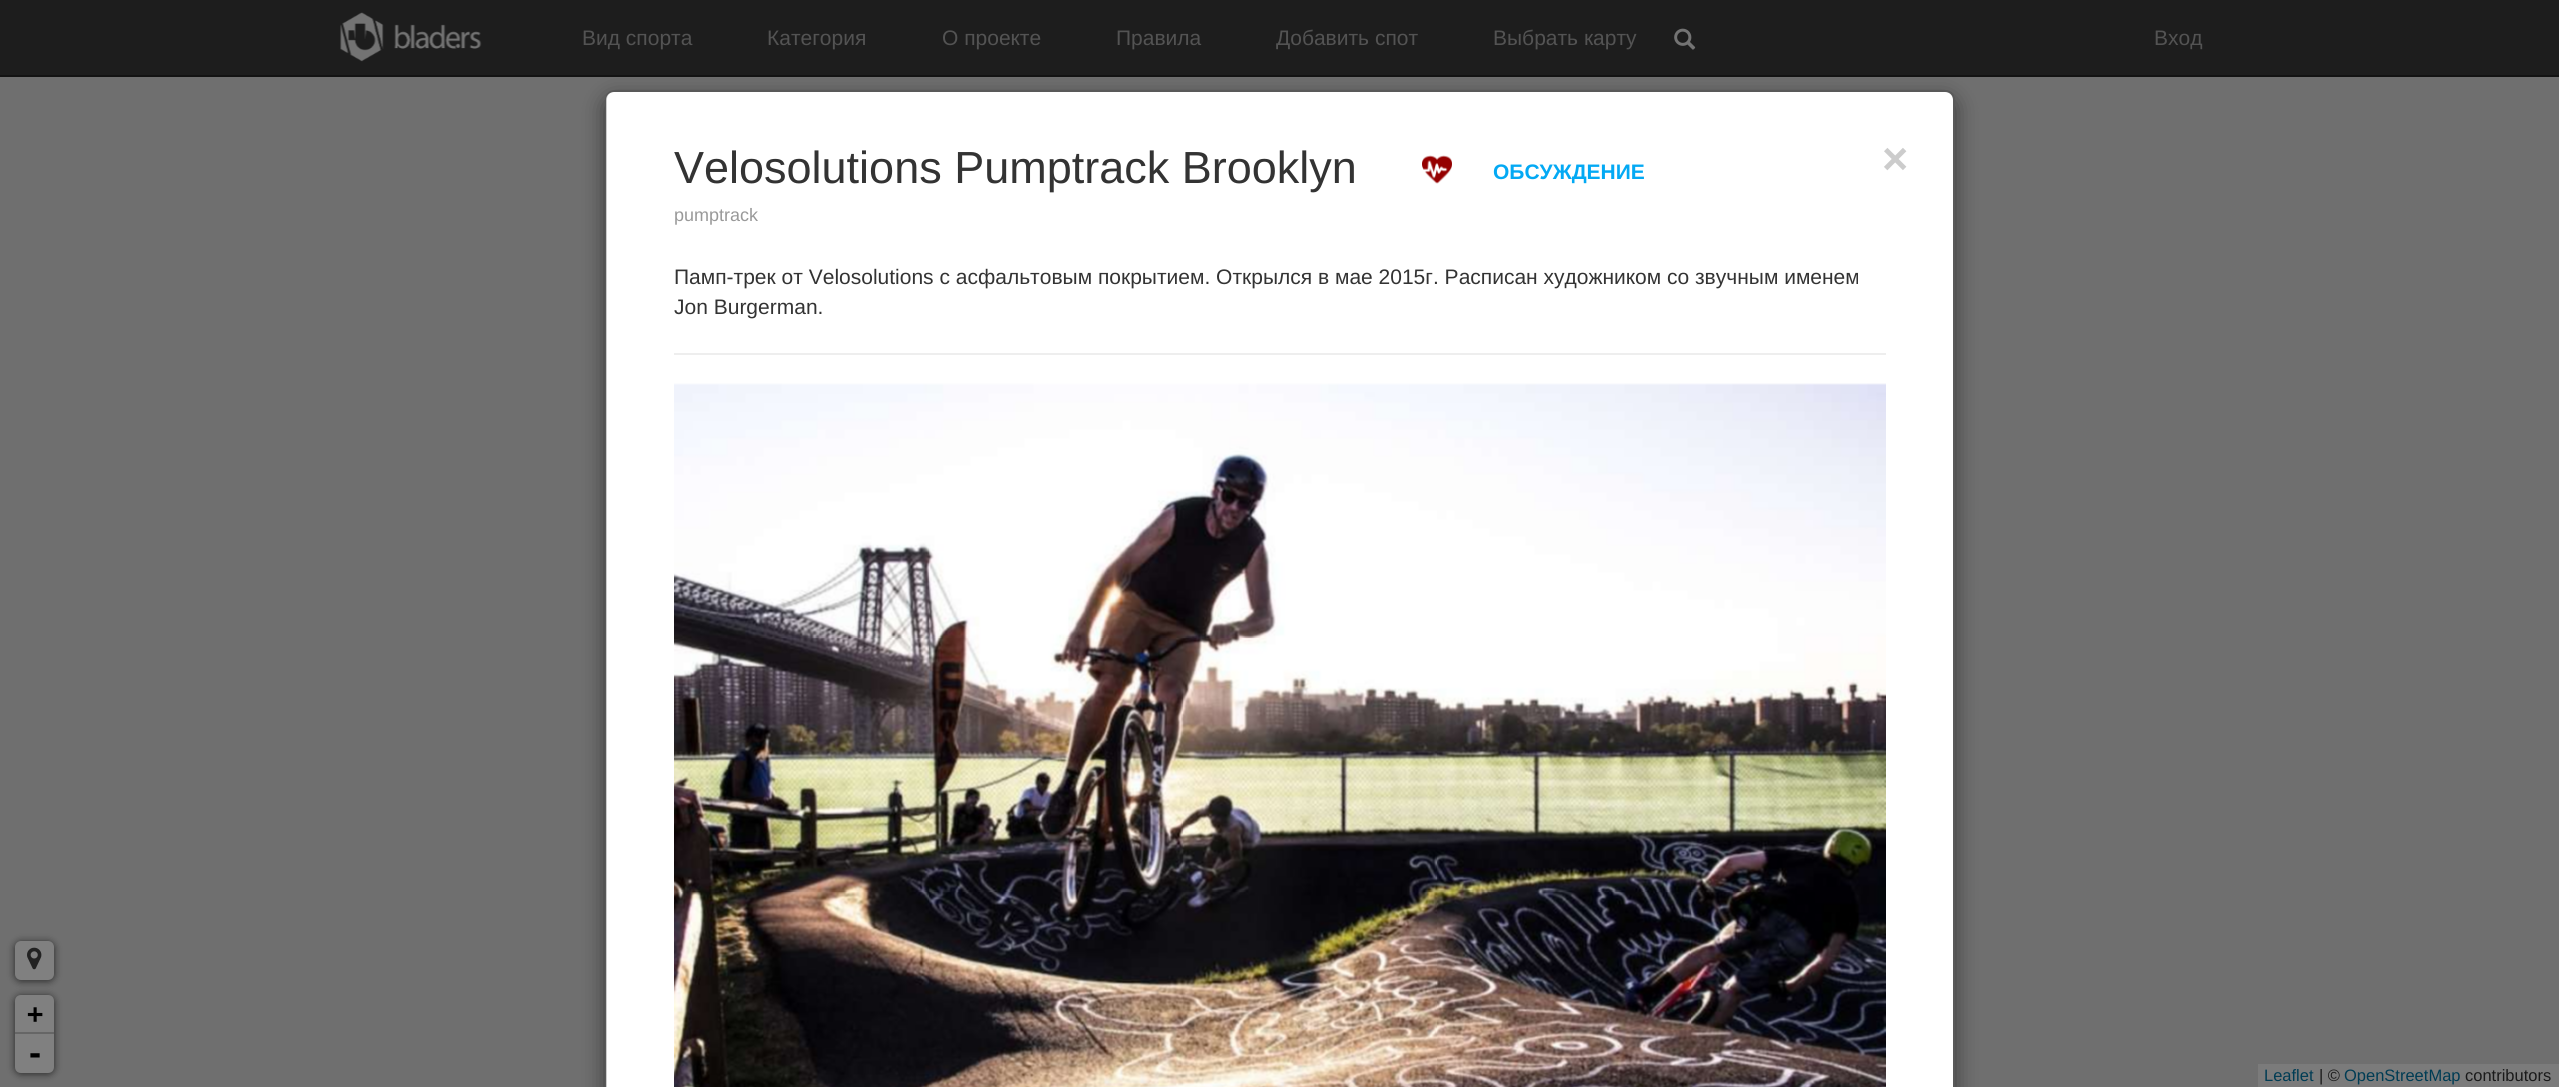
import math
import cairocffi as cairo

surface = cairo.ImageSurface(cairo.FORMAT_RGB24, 2559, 1087)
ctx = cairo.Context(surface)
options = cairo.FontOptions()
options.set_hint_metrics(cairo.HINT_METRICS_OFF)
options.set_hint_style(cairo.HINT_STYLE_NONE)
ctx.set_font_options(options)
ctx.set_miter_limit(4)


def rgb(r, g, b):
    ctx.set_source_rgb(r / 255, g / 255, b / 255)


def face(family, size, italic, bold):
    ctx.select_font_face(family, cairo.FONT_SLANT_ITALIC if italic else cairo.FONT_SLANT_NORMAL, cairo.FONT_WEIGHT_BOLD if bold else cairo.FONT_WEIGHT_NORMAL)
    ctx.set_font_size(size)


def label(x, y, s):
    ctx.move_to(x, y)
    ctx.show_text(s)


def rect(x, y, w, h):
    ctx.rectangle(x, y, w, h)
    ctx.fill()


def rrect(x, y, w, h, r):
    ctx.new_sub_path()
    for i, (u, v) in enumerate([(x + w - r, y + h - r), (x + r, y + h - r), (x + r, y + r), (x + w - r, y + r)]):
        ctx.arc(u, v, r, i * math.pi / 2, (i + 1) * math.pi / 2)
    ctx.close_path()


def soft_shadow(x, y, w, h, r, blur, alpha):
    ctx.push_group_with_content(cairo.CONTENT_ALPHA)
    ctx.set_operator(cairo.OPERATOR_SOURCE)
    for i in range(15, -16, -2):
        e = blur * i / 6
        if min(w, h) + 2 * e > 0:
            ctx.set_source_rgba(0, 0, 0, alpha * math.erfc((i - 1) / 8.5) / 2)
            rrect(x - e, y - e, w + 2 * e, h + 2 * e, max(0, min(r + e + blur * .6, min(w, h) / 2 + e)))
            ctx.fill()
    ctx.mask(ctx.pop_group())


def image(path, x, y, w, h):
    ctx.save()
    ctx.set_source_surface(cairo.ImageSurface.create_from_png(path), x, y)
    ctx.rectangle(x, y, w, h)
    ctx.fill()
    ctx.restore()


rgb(111, 111, 111)
ctx.paint()
rgb(29, 29, 29)
rect(0, 0, 2559, 75)
rgb(19, 19, 19)
rect(0, 75, 2559, 2)
image('image0.png', 340, 12, 142, 50)
face('Liberation Sans', 21, 0, 0)
rgb(83, 83, 83)
label(582, 45, 'Вид спорта')
label(767, 45, 'Категория')
label(942, 45, 'О проекте')
label(1116, 45, 'Правила')
label(1276, 45, 'Добавить спот')
label(1493, 45, 'Выбрать карту')
image('image1.png', 1674, 28, 22, 22)
label(2154, 45, 'Вход')
ctx.save()
ctx.set_fill_rule(cairo.FILL_RULE_EVEN_ODD)
ctx.new_path()
ctx.move_to(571, 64)
ctx.line_to(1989, 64)
ctx.line_to(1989, 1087)
ctx.line_to(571, 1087)
ctx.close_path()
ctx.move_to(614, 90)
ctx.line_to(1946, 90)
ctx.curve_to(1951, 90, 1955, 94, 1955, 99)
ctx.line_to(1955, 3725)
ctx.curve_to(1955, 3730, 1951, 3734, 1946, 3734)
ctx.line_to(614, 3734)
ctx.curve_to(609, 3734, 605, 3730, 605, 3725)
ctx.line_to(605, 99)
ctx.curve_to(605, 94, 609, 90, 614, 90)
ctx.close_path()
ctx.clip()
rgb(0, 0, 0)
soft_shadow(605, 98, 1350, 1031, 9, 11, 0.5)
ctx.restore()
rgb(255, 255, 255)
ctx.new_path()
ctx.move_to(614, 92)
ctx.line_to(1945, 92)
ctx.curve_to(1949.5, 92, 1953, 95.5, 1953, 100)
ctx.line_to(1953, 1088)
ctx.line_to(606, 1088)
ctx.line_to(606, 100)
ctx.curve_to(606, 95.5, 609.5, 92, 614, 92)
ctx.close_path()
ctx.fill()
rrect(606, 91, 1348, 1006, 8)
ctx.set_source_rgba(0, 0, 0, 0.2)
ctx.stroke()
face('Liberation Sans', 45, 0, 0)
rgb(51, 51, 51)
label(674, 183, 'Velosolutions Pumptrack Brooklyn')
image('image2.png', 1422, 155, 30, 29)
face('Liberation Sans', 21, 0, 1)
rgb(3, 169, 244)
label(1493, 179, 'ОБСУЖДЕНИЕ')
face('Liberation Sans', 18, 0, 0)
rgb(153, 153, 153)
label(674, 221, 'pumptrack')
face('Liberation Sans', 45, 0, 1)
rgb(204, 204, 204)
label(1882, 174, '×')
face('Liberation Sans', 21, 0, 0)
rgb(51, 51, 51)
label(674, 284, 'Памп-трек от Velosolutions с асфальтовым покрытием. Открылся в мае 2015г. Расписан художником со звучным именем')
label(674, 314, 'Jon Burgerman.')
rgb(238, 238, 238)
rect(674, 353, 1212, 2)
image('image3.png', 674, 383, 1212, 704)
rgb(0, 0, 0)
soft_shadow(15, 942, 39, 39, 6, 4, 0.65)
rgb(128, 128, 128)
rrect(15, 941, 39, 39, 6)
ctx.fill()
image('image4.png', 27, 947, 15, 23)
rgb(0, 0, 0)
soft_shadow(15, 996, 39, 78, 6, 4, 0.65)
rgb(128, 128, 128)
ctx.new_path()
ctx.move_to(21, 995)
ctx.line_to(48, 995)
ctx.curve_to(51.5, 995, 54, 997.5, 54, 1001)
ctx.line_to(54, 1034)
ctx.line_to(15, 1034)
ctx.line_to(15, 1001)
ctx.curve_to(15, 997.5, 17.5, 995, 21, 995)
ctx.close_path()
ctx.fill()
rgb(102, 102, 102)
rect(15, 1032, 39, 2)
face('DejaVu Sans Mono', 27, 0, 1)
rgb(0, 0, 0)
label(27, 1023, '+')
rgb(128, 128, 128)
ctx.new_path()
ctx.move_to(15, 1034)
ctx.line_to(54, 1034)
ctx.line_to(54, 1067)
ctx.curve_to(54, 1070.5, 51.5, 1073, 48, 1073)
ctx.line_to(21, 1073)
ctx.curve_to(17.5, 1073, 15, 1070.5, 15, 1067)
ctx.close_path()
ctx.fill()
face('DejaVu Sans Mono', 30, 0, 1)
rgb(0, 0, 0)
label(26, 1064, '-')
rgb(123, 123, 123)
rect(2258, 1064, 301, 23)
face('Liberation Sans', 16.5, 0, 0)
rgb(0, 60, 84)
label(2264, 1081, 'Leaflet')
rgb(26, 26, 26)
label(2319, 1081, '| ©')
rgb(0, 60, 84)
label(2344, 1081, 'OpenStreetMap')
rgb(26, 26, 26)
label(2465, 1081, 'contributors')
surface.write_to_png('render.png')
